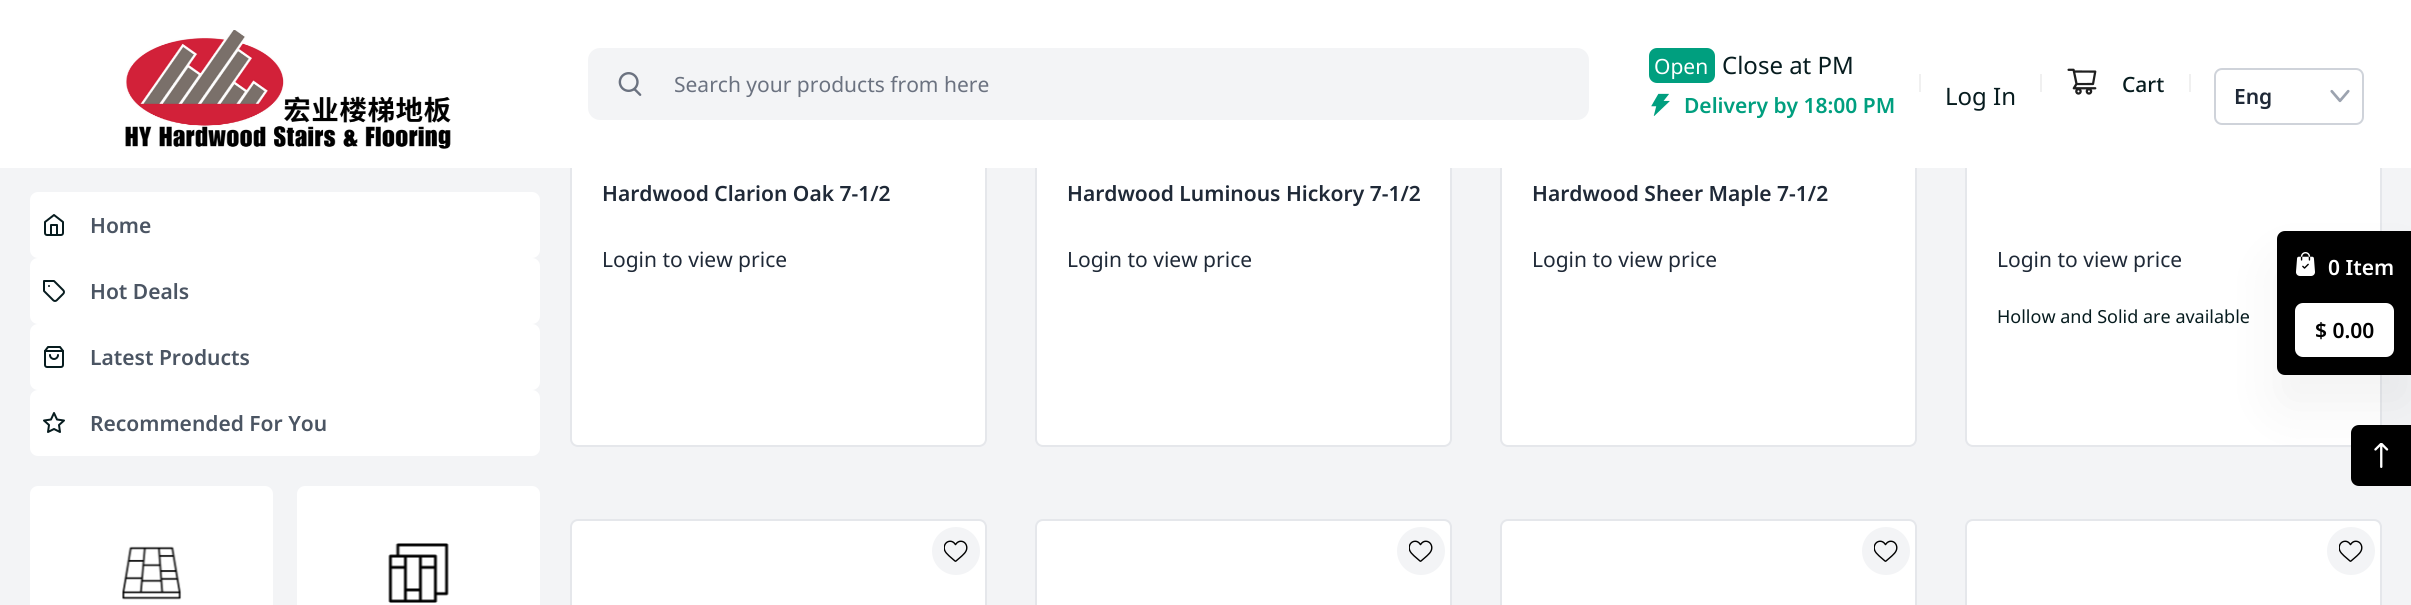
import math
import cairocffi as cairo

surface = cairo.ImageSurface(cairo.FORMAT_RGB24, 2411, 605)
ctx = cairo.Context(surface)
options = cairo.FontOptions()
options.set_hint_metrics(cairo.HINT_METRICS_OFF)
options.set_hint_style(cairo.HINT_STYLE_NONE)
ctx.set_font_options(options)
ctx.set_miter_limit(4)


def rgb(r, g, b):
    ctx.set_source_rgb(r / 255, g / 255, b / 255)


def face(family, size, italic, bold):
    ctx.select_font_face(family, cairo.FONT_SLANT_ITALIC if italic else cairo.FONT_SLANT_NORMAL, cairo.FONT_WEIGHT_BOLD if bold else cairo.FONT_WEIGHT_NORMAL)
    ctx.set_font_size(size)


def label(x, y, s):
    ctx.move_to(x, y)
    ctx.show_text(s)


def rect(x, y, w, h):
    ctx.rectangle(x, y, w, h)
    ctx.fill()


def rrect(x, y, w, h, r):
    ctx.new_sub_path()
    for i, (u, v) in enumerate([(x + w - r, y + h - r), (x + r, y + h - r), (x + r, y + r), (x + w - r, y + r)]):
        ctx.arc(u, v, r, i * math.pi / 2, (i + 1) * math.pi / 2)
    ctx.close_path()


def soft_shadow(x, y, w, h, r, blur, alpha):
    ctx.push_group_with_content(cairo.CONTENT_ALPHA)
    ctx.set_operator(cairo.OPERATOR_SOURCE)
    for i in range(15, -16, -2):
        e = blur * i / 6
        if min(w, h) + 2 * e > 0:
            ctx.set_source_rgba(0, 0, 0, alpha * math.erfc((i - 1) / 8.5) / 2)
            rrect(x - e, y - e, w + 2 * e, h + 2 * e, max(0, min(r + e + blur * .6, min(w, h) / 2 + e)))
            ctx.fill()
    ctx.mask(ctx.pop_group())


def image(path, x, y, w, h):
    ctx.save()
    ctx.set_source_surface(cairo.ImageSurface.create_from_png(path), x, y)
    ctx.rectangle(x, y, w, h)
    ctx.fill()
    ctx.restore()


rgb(243, 244, 246)
ctx.paint()
rgb(255, 255, 255)
rrect(571, -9, 415, 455, 7)
ctx.fill_preserve()
rgb(229, 231, 235)
ctx.stroke()
rgb(255, 255, 255)
rrect(1036, -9, 415, 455, 7)
ctx.fill_preserve()
rgb(229, 231, 235)
ctx.stroke()
rgb(255, 255, 255)
rrect(1501, -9, 415, 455, 7)
ctx.fill_preserve()
rgb(229, 231, 235)
ctx.stroke()
rgb(255, 255, 255)
rrect(1966, -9, 415, 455, 7)
ctx.fill_preserve()
rgb(229, 231, 235)
ctx.stroke()
rgb(255, 255, 255)
rect(0, 0, 2411, 168)
image('image0.png', 125, 30, 326, 119)
rgb(243, 244, 246)
rrect(588, 48, 1001, 72, 12)
ctx.fill()
image('image1.png', 618, 72, 24, 24)
face('Noto Sans', 21, 0, 0)
rgb(107, 114, 128)
label(674, 92, 'Search your products from here')
rgb(0, 159, 127)
rrect(1649, 48, 66, 35, 8)
ctx.fill()
rgb(255, 255, 255)
label(1654, 74, 'Open')
face('Noto Sans', 24, 0, 0)
rgb(7, 28, 31)
label(1722, 74, 'Close at PM')
image('image2.png', 1651, 93, 19, 23)
face('Noto Sans SemiBold', 21, 0, 0)
rgb(0, 159, 127)
label(1684, 113, 'Delivery by 18:00 PM')
rgb(240, 240, 240)
rect(1919, 74, 2, 18)
rect(2040, 74, 2, 18)
image('image3.png', 2067, 68, 30, 27)
face('Noto Sans Medium', 21, 0, 0)
rgb(7, 28, 31)
label(2122, 92, 'Cart')
rgb(240, 240, 240)
rect(2189, 74, 2, 18)
face('Noto Sans', 24, 0, 0)
rgb(7, 28, 31)
label(1945, 105, 'Log In')
rrect(2215, 69, 148, 55, 7)
rgb(207, 211, 218)
ctx.stroke()
face('Noto Sans SemiBold', 21, 0, 0)
rgb(31, 41, 55)
label(2234, 104, 'Eng')
image('image4.png', 2330, 89, 20, 14)
rgb(255, 255, 255)
rrect(30, 192, 510, 66, 8)
ctx.fill()
image('image5.png', 44, 214, 20, 22)
rgb(75, 85, 99)
label(90, 233, 'Home')
rgb(255, 255, 255)
rrect(30, 258, 510, 66, 8)
ctx.fill()
image('image6.png', 43, 280, 22, 22)
rgb(75, 85, 99)
label(90, 299, 'Hot Deals')
rgb(255, 255, 255)
rrect(30, 324, 510, 66, 8)
ctx.fill()
image('image7.png', 44, 346, 20, 22)
rgb(75, 85, 99)
label(90, 365, 'Latest Products')
rgb(255, 255, 255)
rrect(30, 390, 510, 66, 8)
ctx.fill()
ctx.new_path()
ctx.move_to(54, 413)
ctx.line_to(57, 419.5)
ctx.line_to(64, 420.5)
ctx.line_to(59, 425)
ctx.line_to(60, 432)
ctx.line_to(54, 429)
ctx.line_to(48, 432)
ctx.line_to(49, 425)
ctx.line_to(44, 420.5)
ctx.line_to(51, 419.5)
ctx.close_path()
rgb(7, 28, 31)
ctx.set_line_cap(cairo.LINE_CAP_ROUND)
ctx.set_line_join(cairo.LINE_JOIN_ROUND)
ctx.stroke()
rgb(75, 85, 99)
label(90, 431, 'Recommended For You')
rgb(255, 255, 255)
rrect(30, 486, 243, 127, 8)
ctx.fill()
image('image8.png', 122, 546, 60, 54)
rrect(297, 486, 243, 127, 8)
ctx.fill()
image('image9.png', 388, 543, 61, 60)
rgb(31, 41, 55)
label(602, 201, 'Hardwood Clarion Oak 7-1/2')
face('Noto Sans', 21, 0, 0)
label(602, 267, 'Login to view price')
face('Noto Sans SemiBold', 21, 0, 0)
label(1067, 201, 'Hardwood Luminous Hickory 7-1/2')
face('Noto Sans', 21, 0, 0)
label(1067, 267, 'Login to view price')
face('Noto Sans SemiBold', 21, 0, 0)
label(1532, 201, 'Hardwood Sheer Maple 7-1/2')
face('Noto Sans', 21, 0, 0)
label(1532, 267, 'Login to view price')
label(1997, 267, 'Login to view price')
face('Noto Sans', 18, 0, 0)
rgb(7, 28, 31)
label(1997, 323, 'Hollow and Solid are available')
rgb(255, 255, 255)
rrect(571, 520, 415, 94, 7)
ctx.fill_preserve()
rgb(229, 231, 235)
ctx.set_line_cap(cairo.LINE_CAP_BUTT)
ctx.set_line_join(cairo.LINE_JOIN_MITER)
ctx.stroke()
rgb(243, 244, 246)
ctx.arc(956, 551, 24, 0, 2 * math.pi)
ctx.fill()
image('image10.png', 944, 540, 24, 22)
rgb(255, 255, 255)
rrect(1036, 520, 415, 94, 7)
ctx.fill_preserve()
rgb(229, 231, 235)
ctx.stroke()
rgb(243, 244, 246)
ctx.arc(1421, 551, 24, 0, 2 * math.pi)
ctx.fill()
image('image10.png', 1409, 540, 24, 22)
rgb(255, 255, 255)
rrect(1501, 520, 415, 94, 7)
ctx.fill_preserve()
rgb(229, 231, 235)
ctx.stroke()
rgb(243, 244, 246)
ctx.arc(1886, 551, 24, 0, 2 * math.pi)
ctx.fill()
image('image10.png', 1874, 540, 24, 22)
rgb(255, 255, 255)
rrect(1966, 520, 415, 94, 7)
ctx.fill_preserve()
rgb(229, 231, 235)
ctx.stroke()
rgb(243, 244, 246)
ctx.arc(2351, 551, 24, 0, 2 * math.pi)
ctx.fill()
image('image10.png', 2339, 540, 24, 22)
rgb(0, 0, 0)
soft_shadow(2277, 263, 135, 144, 8, 27, 0.05)
rgb(0, 0, 0)
ctx.new_path()
ctx.move_to(2285, 231)
ctx.line_to(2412, 231)
ctx.line_to(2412, 375)
ctx.line_to(2285, 375)
ctx.curve_to(2280.5, 375, 2277, 371.5, 2277, 367)
ctx.line_to(2277, 239)
ctx.curve_to(2277, 234.5, 2280.5, 231, 2285, 231)
ctx.close_path()
ctx.fill()
image('image11.png', 2296, 252, 19, 24)
face('Noto Sans SemiBold', 21, 0, 0)
rgb(255, 255, 255)
label(2328, 275, '0 Item')
rrect(2295, 303, 99, 54, 8)
ctx.fill()
rgb(0, 0, 0)
label(2315, 338, '$ 0.00')
ctx.new_path()
ctx.move_to(2359, 425)
ctx.line_to(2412, 425)
ctx.line_to(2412, 486)
ctx.line_to(2359, 486)
ctx.curve_to(2354.5, 486, 2351, 482.5, 2351, 478)
ctx.line_to(2351, 433)
ctx.curve_to(2351, 428.5, 2354.5, 425, 2359, 425)
ctx.close_path()
ctx.fill()
image('image12.png', 2374, 443, 15, 25)
surface.write_to_png('render.png')
